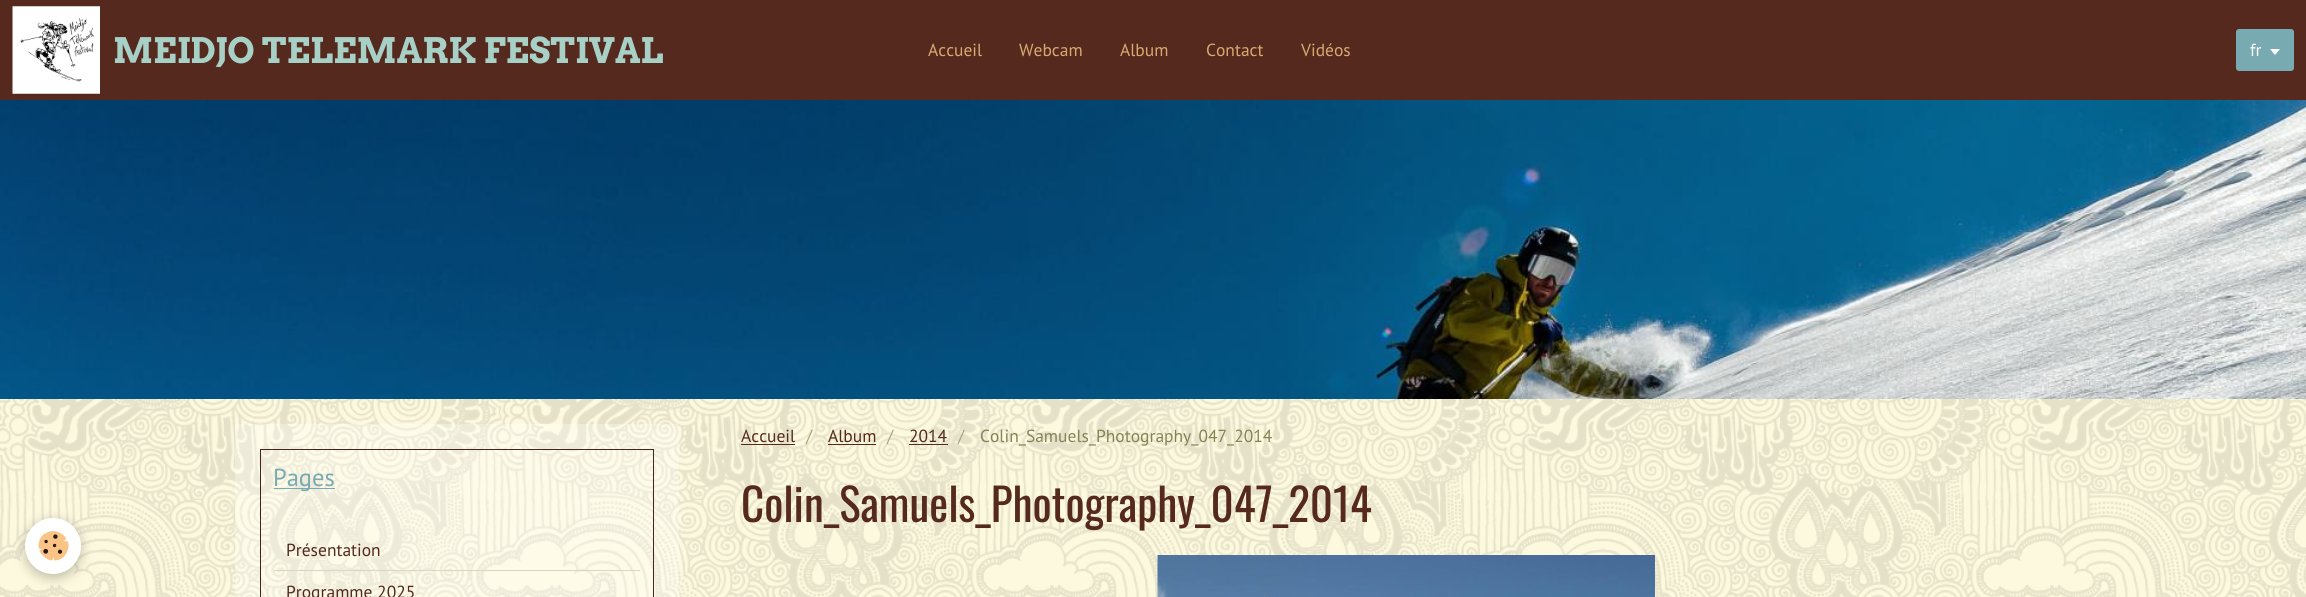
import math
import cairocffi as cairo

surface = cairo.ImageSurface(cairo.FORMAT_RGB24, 2306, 597)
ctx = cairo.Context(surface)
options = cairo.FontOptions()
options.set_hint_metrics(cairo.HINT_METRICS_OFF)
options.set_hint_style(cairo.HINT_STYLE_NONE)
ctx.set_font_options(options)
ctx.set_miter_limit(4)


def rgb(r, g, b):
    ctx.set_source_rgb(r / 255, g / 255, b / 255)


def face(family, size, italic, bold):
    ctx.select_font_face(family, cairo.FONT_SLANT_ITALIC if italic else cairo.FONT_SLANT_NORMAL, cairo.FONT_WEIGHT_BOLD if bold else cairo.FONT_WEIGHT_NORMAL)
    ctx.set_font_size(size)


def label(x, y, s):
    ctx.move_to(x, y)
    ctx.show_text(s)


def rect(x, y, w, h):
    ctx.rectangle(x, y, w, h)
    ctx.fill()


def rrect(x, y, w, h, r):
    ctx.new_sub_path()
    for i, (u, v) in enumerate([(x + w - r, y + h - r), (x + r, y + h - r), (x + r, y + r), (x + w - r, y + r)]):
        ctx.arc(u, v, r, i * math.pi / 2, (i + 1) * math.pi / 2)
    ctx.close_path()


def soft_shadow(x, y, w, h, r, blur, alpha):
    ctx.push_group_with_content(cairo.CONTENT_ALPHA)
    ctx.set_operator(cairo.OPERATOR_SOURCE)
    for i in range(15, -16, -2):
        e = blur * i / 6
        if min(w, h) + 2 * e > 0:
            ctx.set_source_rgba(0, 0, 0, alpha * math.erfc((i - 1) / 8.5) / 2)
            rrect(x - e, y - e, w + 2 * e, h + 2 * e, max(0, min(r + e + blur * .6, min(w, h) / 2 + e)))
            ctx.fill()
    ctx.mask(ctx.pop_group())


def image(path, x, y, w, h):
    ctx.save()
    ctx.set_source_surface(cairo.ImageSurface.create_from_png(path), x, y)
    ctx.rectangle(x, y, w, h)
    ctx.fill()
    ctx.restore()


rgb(255, 251, 224)
ctx.paint()
image('image0.png', 0, 399, 2306, 198)
rgb(85, 41, 30)
rect(0, 0, 2306, 100)
image('image1.png', 12, 6, 88, 88)
face('Arvo', 35, 0, 1)
rgb(167, 209, 199)
label(113, 63, 'MEIDJO TELEMARK FESTIVAL')
face('PT Sans', 17.5, 0, 0)
rgb(215, 170, 113)
label(928, 56, 'Accueil')
label(1019, 56, 'Webcam')
label(1120, 56, 'Album')
label(1206, 56, 'Contact')
label(1301, 56, 'Vidéos')
rgb(119, 170, 177)
rrect(2236, 29, 58, 42, 3)
ctx.fill()
rgb(255, 255, 255)
label(2250, 56, 'fr')
ctx.new_path()
ctx.move_to(2270, 49)
ctx.line_to(2280, 49)
ctx.line_to(2275, 55)
ctx.close_path()
ctx.fill()
image('image2.png', 0, 100, 2306, 299)
rgb(0, 0, 0)
soft_shadow(25, 521, 56, 57, 28, 6, 0.24)
rgb(255, 255, 255)
ctx.arc(53, 546, 28, 0, 2 * math.pi)
ctx.fill()
image('image3.png', 38, 531, 31, 30)
ctx.set_source_rgba(1, 1, 1, 0.3)
rect(235, 424, 444, 173)
ctx.rectangle(260.5, 449.5, 393, 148)
rgb(69, 35, 35)
ctx.set_line_width(1)
ctx.stroke()
rgb(119, 170, 177)
rect(274, 488, 61, 1)
face('PT Sans', 24.5, 0, 0)
label(273, 486, 'Pages')
rgb(218, 214, 191)
rect(274, 570, 366, 1)
face('PT Sans', 17.5, 0, 0)
rgb(85, 41, 30)
label(286, 556, 'Présentation')
label(286, 598, 'Programme 2025')
label(741, 442, 'Accueil')
rect(741, 444, 54, 1)
rgb(167, 163, 124)
label(806, 442, '/')
rgb(85, 41, 30)
label(828, 442, 'Album')
rect(828, 444, 48, 1)
rgb(167, 163, 124)
label(887, 442, '/')
rgb(85, 41, 30)
label(909, 442, '2014')
rect(909, 444, 39, 1)
rgb(167, 163, 124)
label(958, 442, '/')
rgb(134, 130, 85)
label(980, 442, 'Colin_Samuels_Photography_047_2014')
face('Oswald', 45, 0, 0)
rgb(85, 41, 30)
label(741, 522, 'Colin_Samuels_Photography_047_2014')
image('image4.png', 1157, 555, 498, 42)
surface.write_to_png('render.png')
